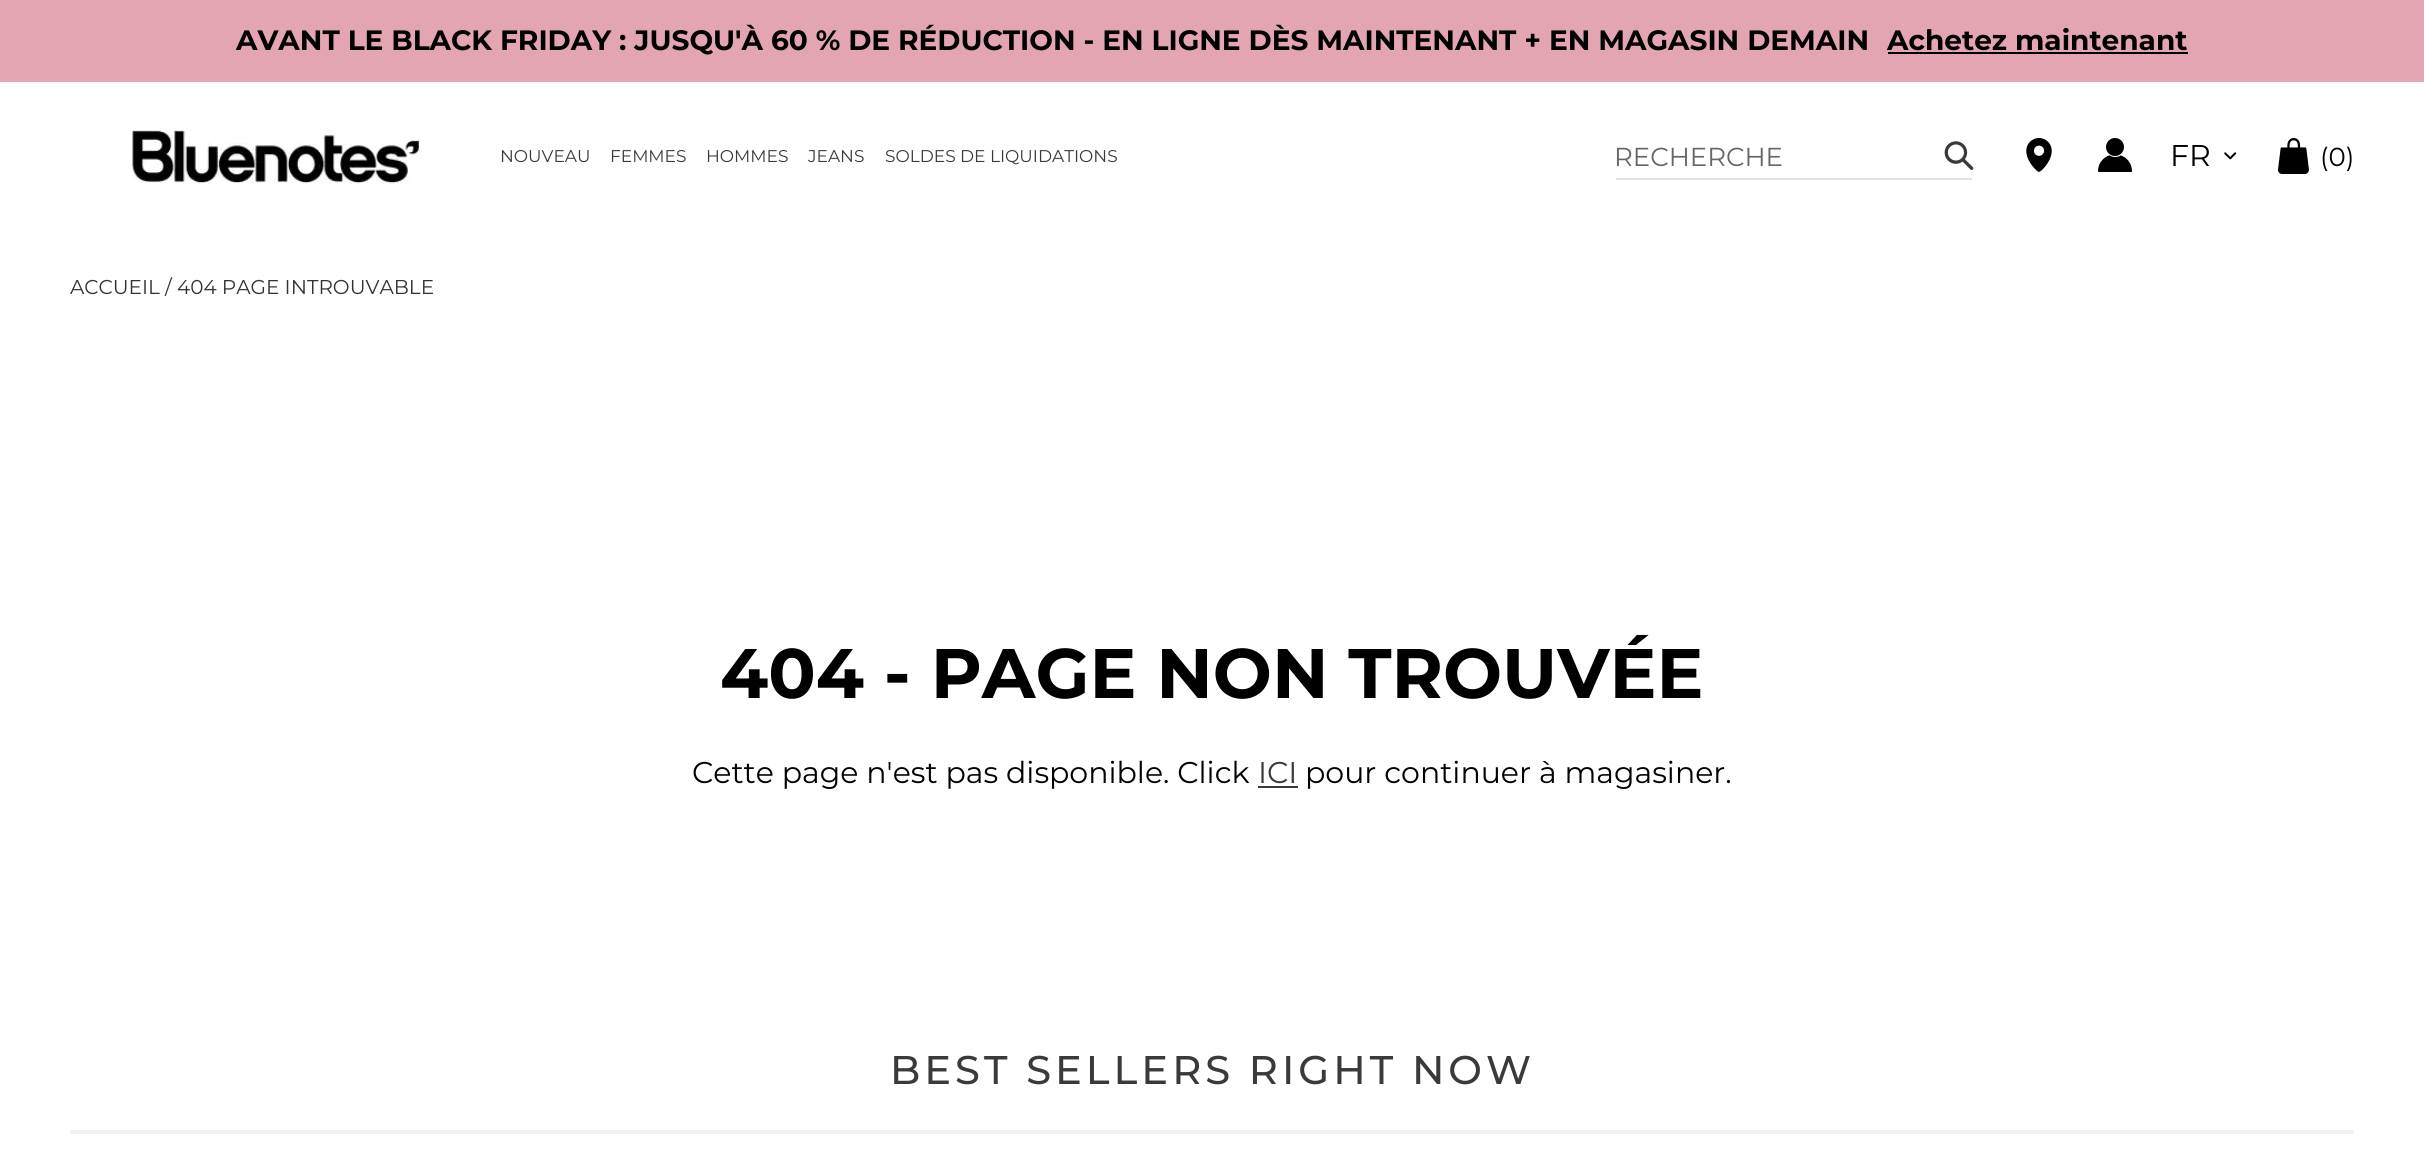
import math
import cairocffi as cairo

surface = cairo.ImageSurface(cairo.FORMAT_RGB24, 2424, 1173)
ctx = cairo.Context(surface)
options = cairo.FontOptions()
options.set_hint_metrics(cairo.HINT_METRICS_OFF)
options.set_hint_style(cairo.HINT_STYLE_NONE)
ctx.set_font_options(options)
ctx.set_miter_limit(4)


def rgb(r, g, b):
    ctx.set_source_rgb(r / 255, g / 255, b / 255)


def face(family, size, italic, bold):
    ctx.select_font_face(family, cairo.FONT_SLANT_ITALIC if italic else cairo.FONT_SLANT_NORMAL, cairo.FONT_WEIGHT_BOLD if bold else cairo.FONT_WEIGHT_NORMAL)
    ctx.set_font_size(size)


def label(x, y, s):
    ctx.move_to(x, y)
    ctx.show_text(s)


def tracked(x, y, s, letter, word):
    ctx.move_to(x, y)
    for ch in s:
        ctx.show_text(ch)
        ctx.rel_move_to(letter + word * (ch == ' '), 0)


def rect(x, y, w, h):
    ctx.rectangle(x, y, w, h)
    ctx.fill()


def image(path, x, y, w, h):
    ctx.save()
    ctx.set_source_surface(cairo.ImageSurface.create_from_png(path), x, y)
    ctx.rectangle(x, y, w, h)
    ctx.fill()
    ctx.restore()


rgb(255, 255, 255)
ctx.paint()
rgb(228, 165, 178)
rect(0, 0, 2424, 82)
face('Montserrat', 28, 0, 1)
rgb(0, 0, 0)
label(236, 50, 'AVANT LE BLACK FRIDAY : JUSQU\'À 60 % DE RÉDUCTION - EN LIGNE DÈS MAINTENANT + EN MAGASIN DEMAIN')
label(1887, 50, 'Achetez maintenant')
rect(1888, 52, 300, 2)
image('image0.png', 132, 130, 289, 54)
face('Montserrat', 17, 0, 0)
rgb(58, 58, 58)
label(500, 162, 'NOUVEAU')
label(610, 162, 'FEMMES')
label(706, 162, 'HOMMES')
label(808, 162, 'JEANS')
label(885, 162, 'SOLDES DE LIQUIDATIONS')
rgb(227, 227, 227)
rect(1616, 178, 356, 2)
face('Montserrat', 26, 0, 0)
rgb(102, 102, 102)
label(1614, 166, 'RECHERCHE')
image('image1.png', 1944, 141, 30, 29)
image('image2.png', 2026, 138, 26, 34)
image('image3.png', 2098, 138, 34, 34)
face('Montserrat', 30, 0, 0)
rgb(0, 0, 0)
label(2170, 166, 'FR')
image('image4.png', 2224, 152, 13, 8)
image('image5.png', 2278, 138, 31, 36)
face('Montserrat', 26, 0, 0)
label(2320, 166, '(0)')
face('Montserrat', 20, 0, 0)
rgb(51, 51, 51)
label(70, 294, 'ACCUEIL / 404 PAGE INTROUVABLE')
face('Montserrat', 70, 0, 1)
rgb(0, 0, 0)
label(720, 698, '404 - PAGE NON TROUVÉE')
face('Montserrat', 30, 0, 0)
label(692, 783, 'Cette page n\'est pas disponible. Click')
rgb(58, 58, 58)
label(1258, 783, 'ICI')
rect(1258, 786, 40, 2)
rgb(0, 0, 0)
label(1305, 783, 'pour continuer à magasiner.')
face('Montserrat Medium', 40, 0, 0)
rgb(58, 58, 58)
tracked(890, 1084, 'BEST SELLERS RIGHT NOW', 4, 0)
rgb(242, 242, 242)
rect(70, 1130, 2284, 4)
surface.write_to_png('render.png')
